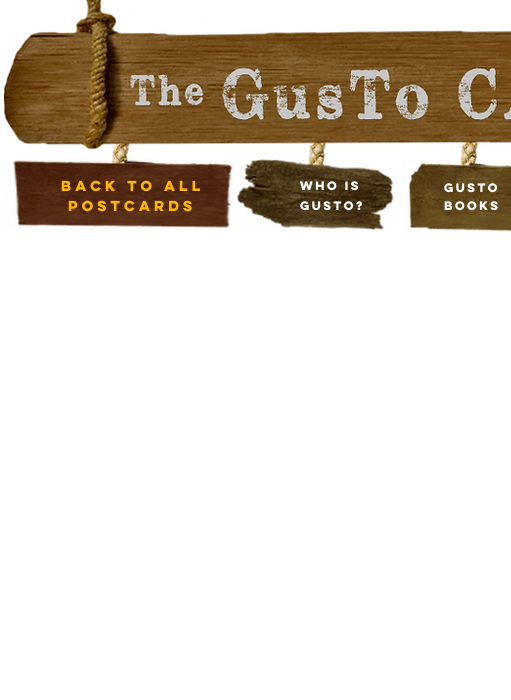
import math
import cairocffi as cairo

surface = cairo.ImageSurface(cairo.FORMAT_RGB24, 511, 700)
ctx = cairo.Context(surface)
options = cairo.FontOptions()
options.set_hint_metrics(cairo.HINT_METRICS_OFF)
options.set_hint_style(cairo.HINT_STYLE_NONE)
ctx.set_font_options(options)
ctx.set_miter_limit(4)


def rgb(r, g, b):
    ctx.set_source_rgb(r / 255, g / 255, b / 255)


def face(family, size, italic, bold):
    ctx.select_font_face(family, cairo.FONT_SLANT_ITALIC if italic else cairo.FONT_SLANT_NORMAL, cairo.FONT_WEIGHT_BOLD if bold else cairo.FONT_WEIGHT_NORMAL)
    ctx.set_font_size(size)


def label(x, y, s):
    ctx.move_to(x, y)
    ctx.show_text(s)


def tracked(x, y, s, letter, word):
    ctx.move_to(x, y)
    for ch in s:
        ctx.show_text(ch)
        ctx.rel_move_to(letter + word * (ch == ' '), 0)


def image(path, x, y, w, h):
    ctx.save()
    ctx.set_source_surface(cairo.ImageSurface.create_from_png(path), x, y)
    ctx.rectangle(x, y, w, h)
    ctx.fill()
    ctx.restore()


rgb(255, 255, 255)
ctx.paint()
image('image0.png', 4, 0, 507, 232)
face('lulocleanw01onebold', 13, 0, 1)
rgb(255, 184, 0)
tracked(61, 191, 'Back to all', 1.25, 0)
tracked(68, 211, 'postcards', 1.25, 0)
face('lulocleanw01onebold', 11, 0, 1)
rgb(255, 255, 255)
label(300, 190, 'Who Is')
label(444, 192, 'Gusto')
label(300, 210, 'Gusto?')
label(444, 210, 'Books')
surface.write_to_png('render.png')
